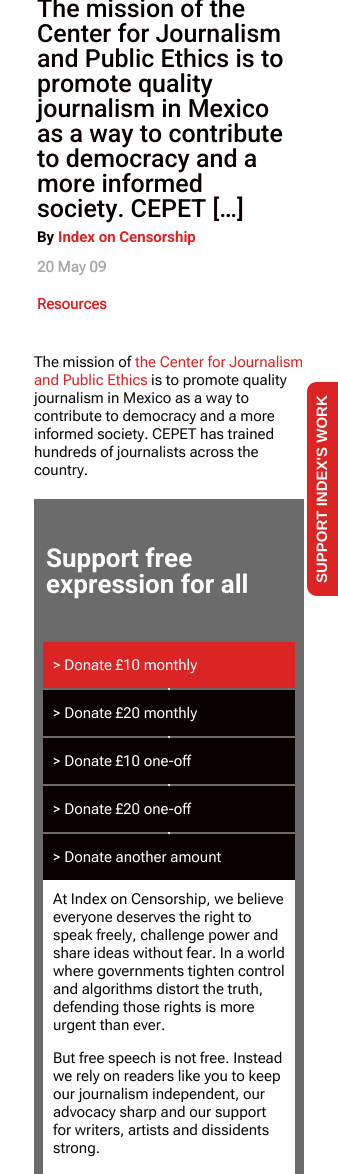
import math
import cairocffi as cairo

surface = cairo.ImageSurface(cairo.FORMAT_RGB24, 338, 1174)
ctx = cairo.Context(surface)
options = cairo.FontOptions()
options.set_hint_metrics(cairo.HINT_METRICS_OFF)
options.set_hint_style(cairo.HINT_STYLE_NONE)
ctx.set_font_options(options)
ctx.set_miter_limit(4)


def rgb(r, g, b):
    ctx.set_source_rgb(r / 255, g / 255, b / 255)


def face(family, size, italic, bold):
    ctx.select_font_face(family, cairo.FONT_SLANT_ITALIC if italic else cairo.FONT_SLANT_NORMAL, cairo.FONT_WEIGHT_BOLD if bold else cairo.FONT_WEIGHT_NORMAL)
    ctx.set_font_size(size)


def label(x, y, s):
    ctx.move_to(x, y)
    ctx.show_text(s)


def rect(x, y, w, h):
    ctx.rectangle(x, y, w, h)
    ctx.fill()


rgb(255, 255, 255)
ctx.paint()
face('Roboto Medium', 25, 0, 0)
rgb(10, 0, 0)
label(37, 17, 'The mission of the')
label(37, 42, 'Center for Journalism')
label(37, 67, 'and Public Ethics is to')
label(37, 92, 'promote quality')
label(37, 117, 'journalism in Mexico')
label(37, 142, 'as a way to contribute')
label(37, 167, 'to democracy and a')
label(37, 192, 'more informed')
label(37, 217, 'society. CEPET […]')
face('Roboto', 15, 0, 1)
label(37, 242, 'By')
rgb(219, 36, 36)
label(58, 242, 'Index on Censorship')
face('Roboto Flex', 15, 0, 1)
rgb(168, 168, 168)
label(37, 272, '20 May 09')
rgb(219, 36, 36)
label(37, 309, 'Resources')
face('Roboto Flex', 15, 0, 0)
rgb(10, 10, 10)
label(34, 367, 'The mission of')
rgb(219, 36, 36)
label(135, 367, 'the Center for Journalism')
label(34, 385, 'and Public Ethics')
rgb(10, 10, 10)
label(151, 385, 'is to promote quality')
label(34, 403, 'journalism in Mexico as a way to')
label(34, 421, 'contribute to democracy and a more')
label(34, 439, 'informed society. CEPET has trained')
label(34, 457, 'hundreds of journalists across the')
label(34, 475, 'country.')
rgb(107, 107, 107)
rect(34, 499, 270, 675)
face('Roboto', 26, 0, 1)
rgb(255, 255, 255)
label(46, 567, 'Support free')
label(46, 593, 'expression for all')
rgb(219, 36, 36)
rect(43, 642, 252, 46)
face('Roboto Flex', 15, 0, 0)
rgb(255, 255, 255)
label(53, 670, '> Donate £10 monthly')
rgb(229, 229, 229)
rect(168, 688, 2, 146)
rgb(10, 0, 0)
rect(43, 690, 252, 46)
rgb(255, 255, 255)
label(53, 718, '> Donate £20 monthly')
rgb(10, 0, 0)
rect(43, 738, 252, 46)
rgb(255, 255, 255)
label(53, 766, '> Donate £10 one-off')
rgb(10, 0, 0)
rect(43, 786, 252, 46)
rgb(255, 255, 255)
label(53, 814, '> Donate £20 one-off')
rgb(10, 0, 0)
rect(43, 834, 252, 46)
rgb(255, 255, 255)
label(53, 862, '> Donate another amount')
rect(43, 880, 252, 294)
rgb(10, 10, 10)
label(53, 904, 'At Index on Censorship, we believe')
label(53, 922, 'everyone deserves the right to')
label(53, 940, 'speak freely, challenge power and')
label(53, 958, 'share ideas without fear. In a world')
label(53, 976, 'where governments tighten control')
label(53, 994, 'and algorithms distort the truth,')
label(53, 1012, 'defending those rights is more')
label(53, 1030, 'urgent than ever.')
label(53, 1063, 'But free speech is not free. Instead')
label(53, 1081, 'we rely on readers like you to keep')
label(53, 1099, 'our journalism independent, our')
label(53, 1117, 'advocacy sharp and our support')
label(53, 1135, 'for writers, artists and dissidents')
label(53, 1153, 'strong.')
rgb(219, 36, 36)
ctx.new_path()
ctx.move_to(307, 586)
ctx.line_to(307, 392)
ctx.curve_to(307, 386, 311, 382, 317, 382)
ctx.line_to(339, 382)
ctx.line_to(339, 596)
ctx.line_to(317, 596)
ctx.curve_to(311, 596, 307, 591, 307, 586)
ctx.close_path()
ctx.fill()
face('Liberation Sans', 15, 0, 1)
rgb(255, 255, 255)
ctx.save()
ctx.translate(327, 583)
ctx.rotate(-90 * math.pi / 180)
label(0, 0, 'SUPPORT INDEX\'S WORK')
ctx.restore()
surface.write_to_png('render.png')
